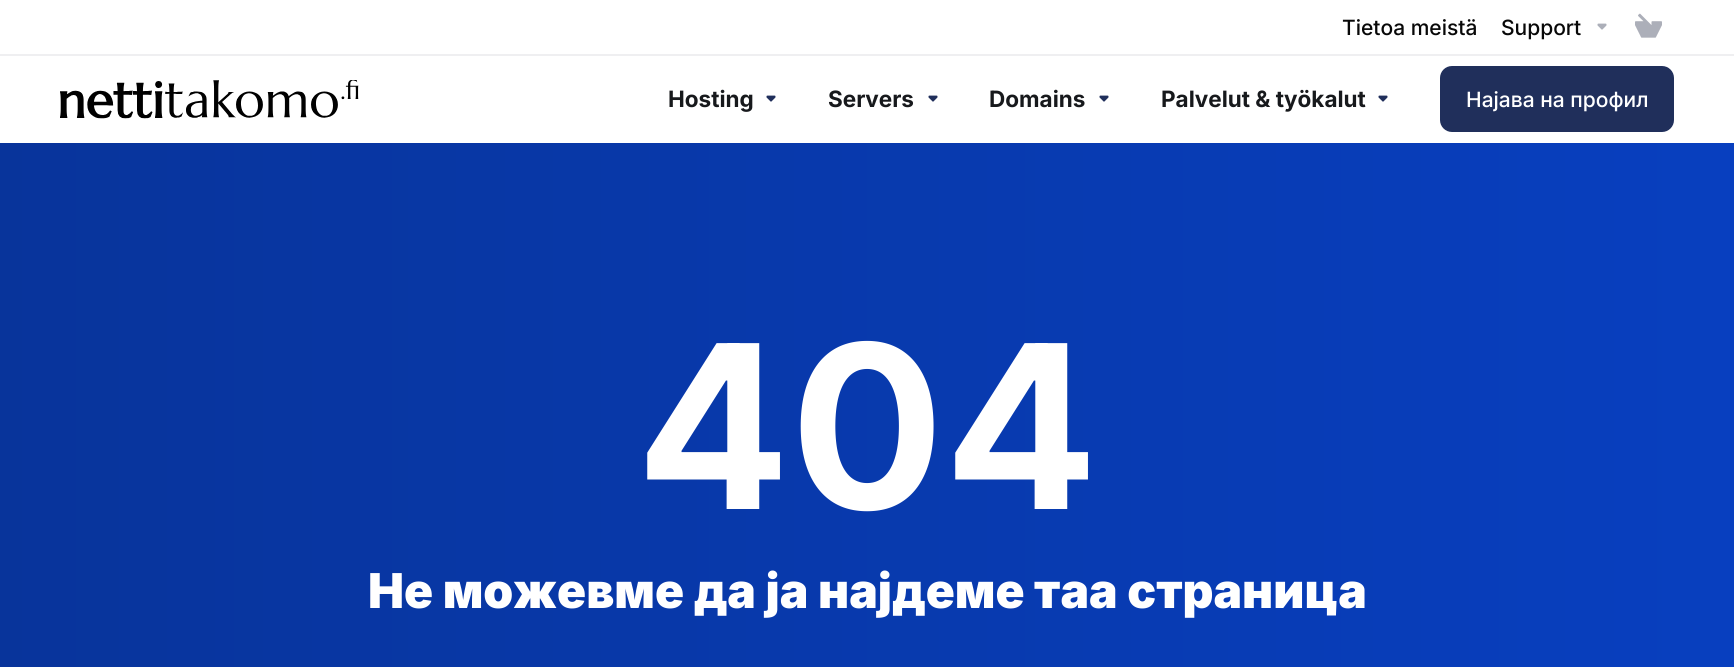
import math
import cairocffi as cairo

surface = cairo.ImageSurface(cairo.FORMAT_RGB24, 1734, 667)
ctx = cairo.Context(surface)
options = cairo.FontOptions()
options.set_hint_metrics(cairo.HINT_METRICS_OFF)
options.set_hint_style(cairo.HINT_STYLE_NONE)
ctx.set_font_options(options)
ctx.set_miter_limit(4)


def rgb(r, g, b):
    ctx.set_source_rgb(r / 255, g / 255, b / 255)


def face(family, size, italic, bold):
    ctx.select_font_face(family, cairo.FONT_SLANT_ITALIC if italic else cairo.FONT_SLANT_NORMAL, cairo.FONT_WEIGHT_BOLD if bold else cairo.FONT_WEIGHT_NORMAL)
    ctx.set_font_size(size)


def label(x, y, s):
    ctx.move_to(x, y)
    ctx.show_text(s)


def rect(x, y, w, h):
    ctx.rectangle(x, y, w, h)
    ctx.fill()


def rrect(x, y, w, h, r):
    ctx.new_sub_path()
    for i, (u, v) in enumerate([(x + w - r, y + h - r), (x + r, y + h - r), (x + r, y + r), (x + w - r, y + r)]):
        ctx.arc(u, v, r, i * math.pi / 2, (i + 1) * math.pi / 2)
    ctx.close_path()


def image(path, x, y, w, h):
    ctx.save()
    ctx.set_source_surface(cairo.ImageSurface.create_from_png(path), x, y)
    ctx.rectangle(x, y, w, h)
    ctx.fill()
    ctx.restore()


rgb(255, 255, 255)
ctx.paint()
rgb(239, 239, 241)
rect(0, 54, 1734, 2)
face('Inter Medium', 21, 0, 0)
rgb(8, 8, 8)
label(1342, 35, 'Tietoa meistä')
label(1501, 35, 'Support')
image('image0.png', 1597, 23, 10, 7)
image('image1.png', 1635, 13, 27, 25)
image('image2.png', 60, 80, 299, 39)
face('Inter', 22.5, 0, 1)
rgb(23, 25, 28)
label(668, 107, 'Hosting')
image('image3.png', 766, 95, 10, 7)
label(828, 107, 'Servers')
image('image3.png', 928, 95, 10, 7)
label(989, 107, 'Domains')
image('image3.png', 1099, 95, 10, 7)
label(1161, 107, 'Palvelut & työkalut')
image('image3.png', 1378, 95, 10, 7)
rgb(32, 47, 91)
rrect(1441, 67, 232, 64, 11)
ctx.fill_preserve()
ctx.stroke()
face('Inter Medium', 21, 0, 0)
rgb(255, 255, 255)
label(1466, 107, 'Најава на профил')
gradient = cairo.LinearGradient(0, 559, 1734, 559)
gradient.add_color_stop_rgba(0, 0.031, 0.204, 0.608, 1)
gradient.add_color_stop_rgba(1, 0.031, 0.247, 0.749, 1)
ctx.set_source(gradient)
rect(0, 143, 1734, 524)
face('Inter', 228, 0, 1)
rgb(255, 255, 255)
label(636, 509, '404')
face('Inter Black', 48, 0, 0)
label(368, 608, 'Не можевме да ја најдеме таа страница')
surface.write_to_png('render.png')
